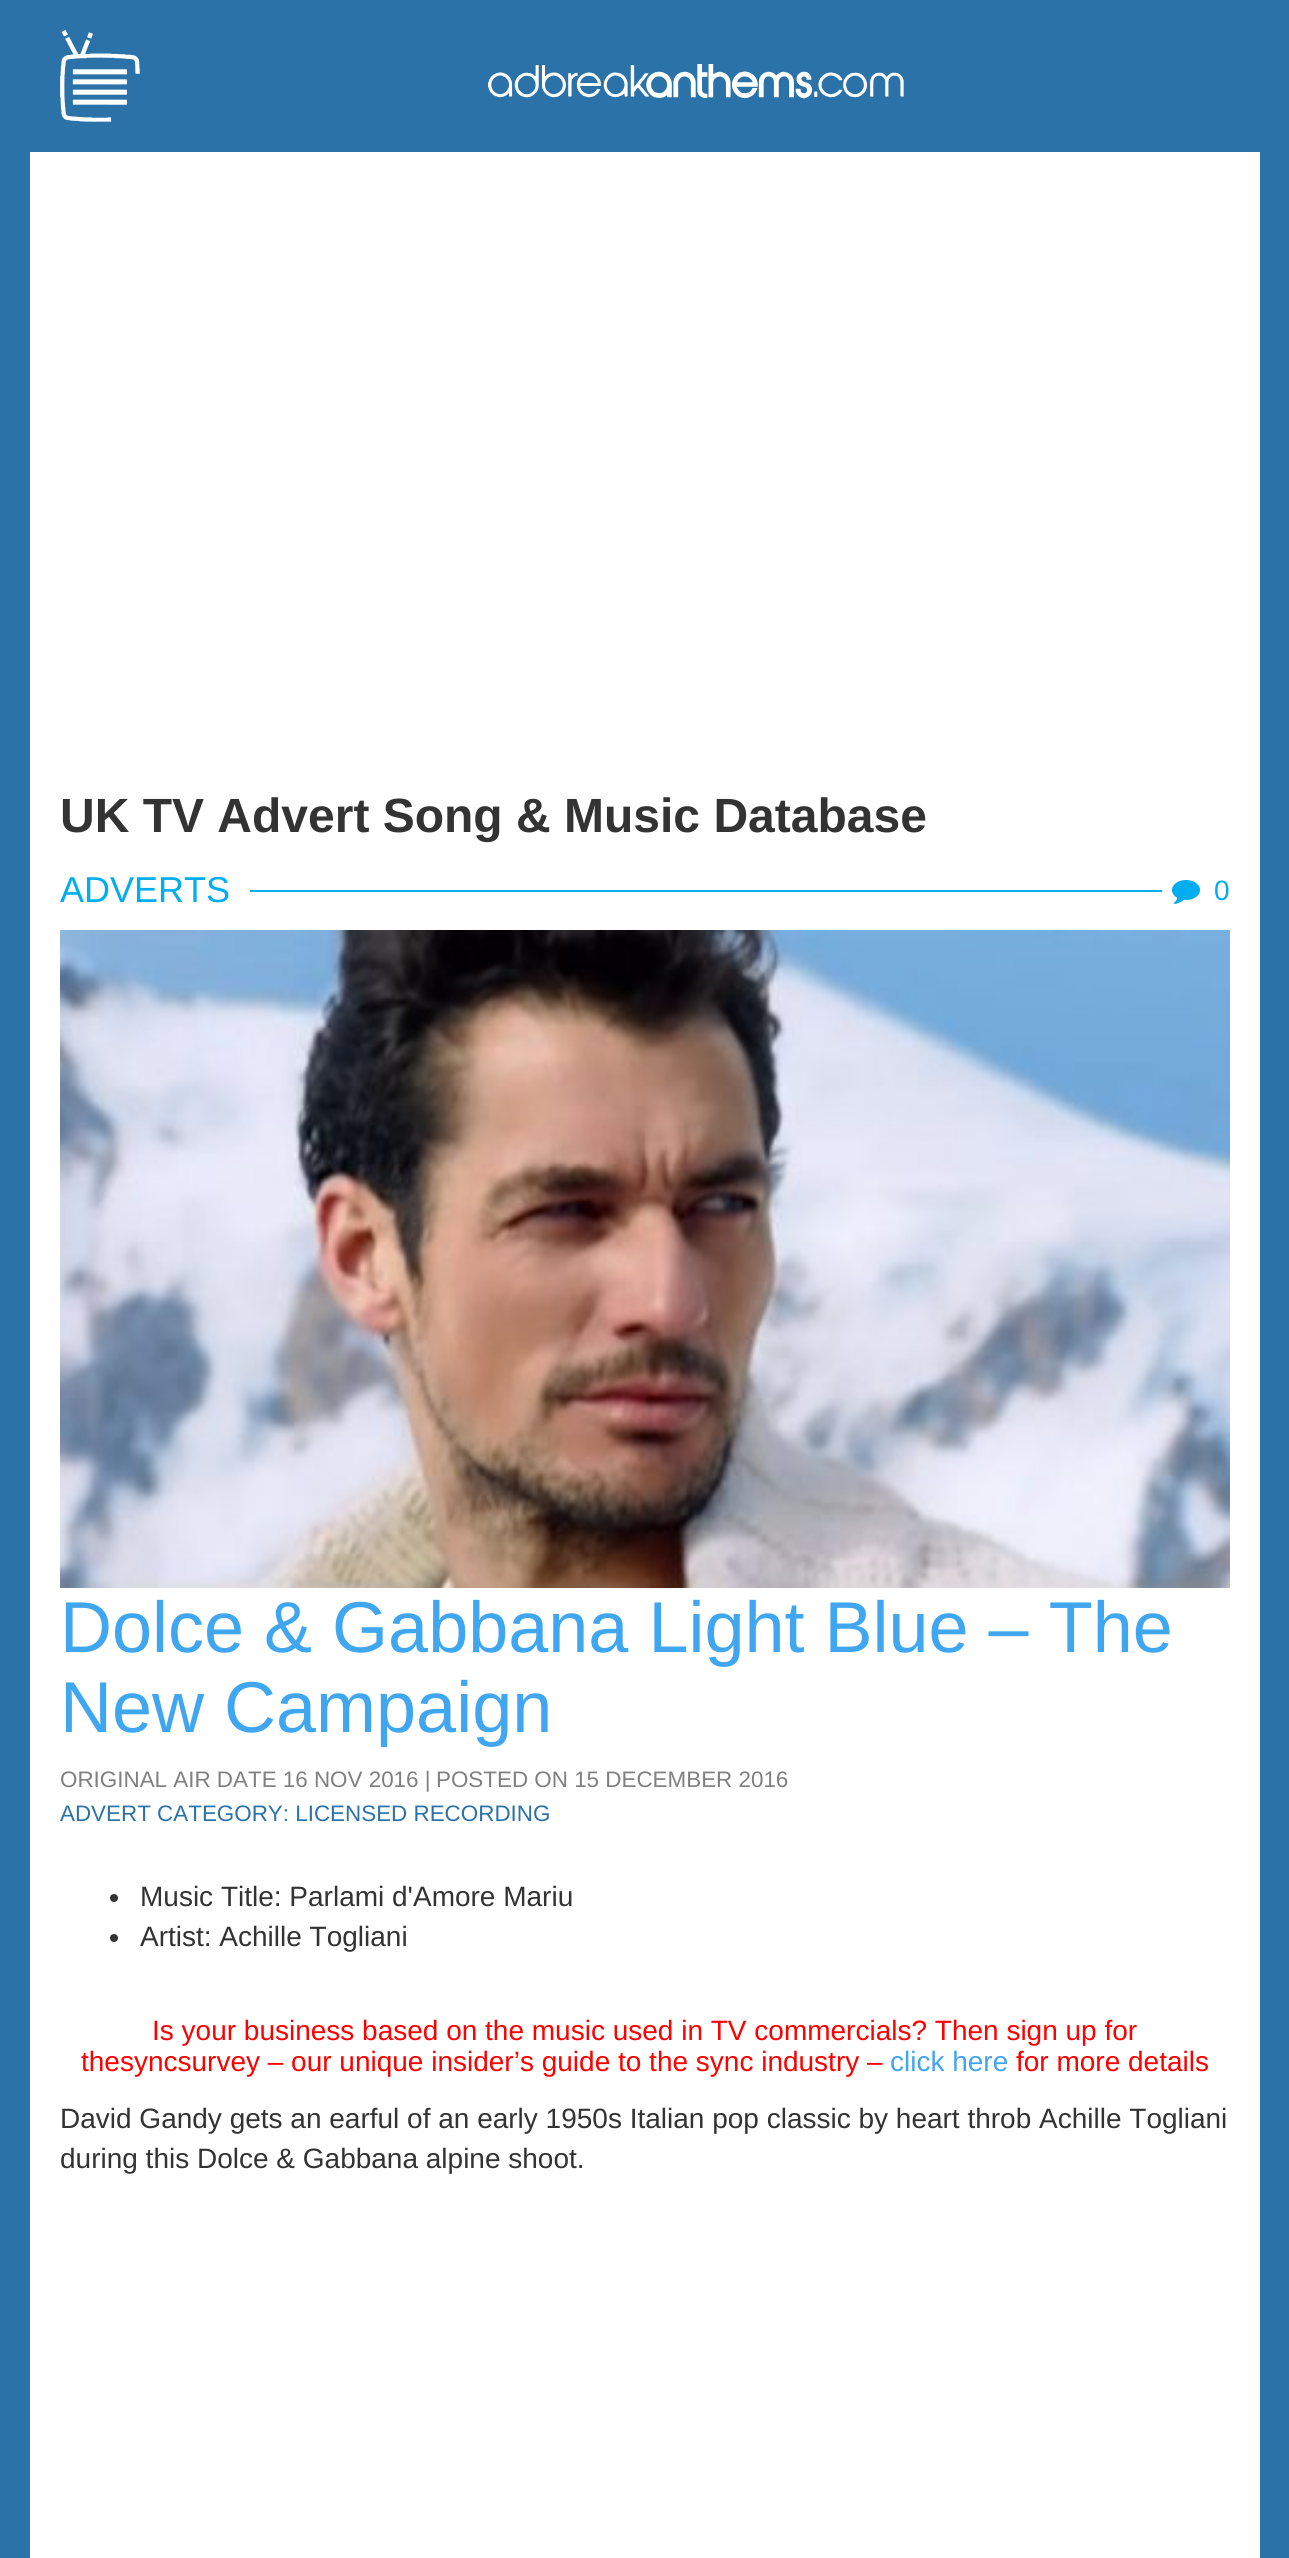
import math
import cairocffi as cairo

surface = cairo.ImageSurface(cairo.FORMAT_RGB24, 1289, 2558)
ctx = cairo.Context(surface)
options = cairo.FontOptions()
options.set_hint_metrics(cairo.HINT_METRICS_OFF)
options.set_hint_style(cairo.HINT_STYLE_NONE)
ctx.set_font_options(options)
ctx.set_miter_limit(4)


def rgb(r, g, b):
    ctx.set_source_rgb(r / 255, g / 255, b / 255)


def face(family, size, italic, bold):
    ctx.select_font_face(family, cairo.FONT_SLANT_ITALIC if italic else cairo.FONT_SLANT_NORMAL, cairo.FONT_WEIGHT_BOLD if bold else cairo.FONT_WEIGHT_NORMAL)
    ctx.set_font_size(size)


def label(x, y, s):
    ctx.move_to(x, y)
    ctx.show_text(s)


def rect(x, y, w, h):
    ctx.rectangle(x, y, w, h)
    ctx.fill()


def image(path, x, y, w, h):
    ctx.save()
    ctx.set_source_surface(cairo.ImageSurface.create_from_png(path), x, y)
    ctx.rectangle(x, y, w, h)
    ctx.fill()
    ctx.restore()


rgb(43, 114, 169)
ctx.paint()
image('image0.png', 60, 30, 80, 92)
image('image1.png', 488, 64, 416, 35)
rgb(255, 255, 255)
rect(30, 152, 1230, 2406)
face('Liberation Sans', 48, 0, 1)
rgb(51, 51, 51)
label(60, 832, 'UK TV Advert Song & Music Database')
rgb(0, 173, 239)
rect(250, 890, 912, 2)
face('Liberation Sans', 36, 0, 0)
label(60, 902, 'ADVERTS')
image('image2.png', 1172, 880, 28, 24)
face('Liberation Sans', 28, 0, 0)
label(1214, 900, '0')
image('image3.png', 60, 930, 1170, 658)
face('Liberation Sans', 72, 0, 0)
rgb(64, 166, 239)
label(60, 1652, 'Dolce & Gabbana Light Blue – The')
label(60, 1732, 'New Campaign')
face('Liberation Sans', 22.4, 0, 0)
rgb(128, 128, 128)
label(60, 1787, 'ORIGINAL AIR DATE 16 NOV 2016 |')
label(436, 1787, 'POSTED ON 15 DECEMBER 2016')
rgb(43, 114, 169)
label(60, 1821, 'ADVERT CATEGORY: LICENSED RECORDING')
rgb(51, 51, 51)
ctx.new_path()
ctx.arc(114, 1898, 4, 0, 2 * math.pi)
ctx.fill()
face('Liberation Sans', 28, 0, 0)
label(140, 1906, 'Music Title: Parlami d\'Amore Mariu')
ctx.new_path()
ctx.arc(114, 1938, 4, 0, 2 * math.pi)
ctx.fill()
label(140, 1946, 'Artist: Achille Togliani')
rgb(255, 0, 0)
label(152, 2040, 'Is your business based on the music used in TV commercials? Then sign up for')
label(81, 2071, 'thesyncsurvey – our unique insider’s guide to the sync industry –')
rgb(64, 166, 239)
label(890, 2071, 'click here')
rgb(255, 0, 0)
label(1016, 2071, 'for more details')
rgb(51, 51, 51)
label(60, 2128, 'David Gandy gets an earful of an early 1950s Italian pop classic by heart throb Achille Togliani')
label(60, 2168, 'during this Dolce & Gabbana alpine shoot.')
surface.write_to_png('render.png')
